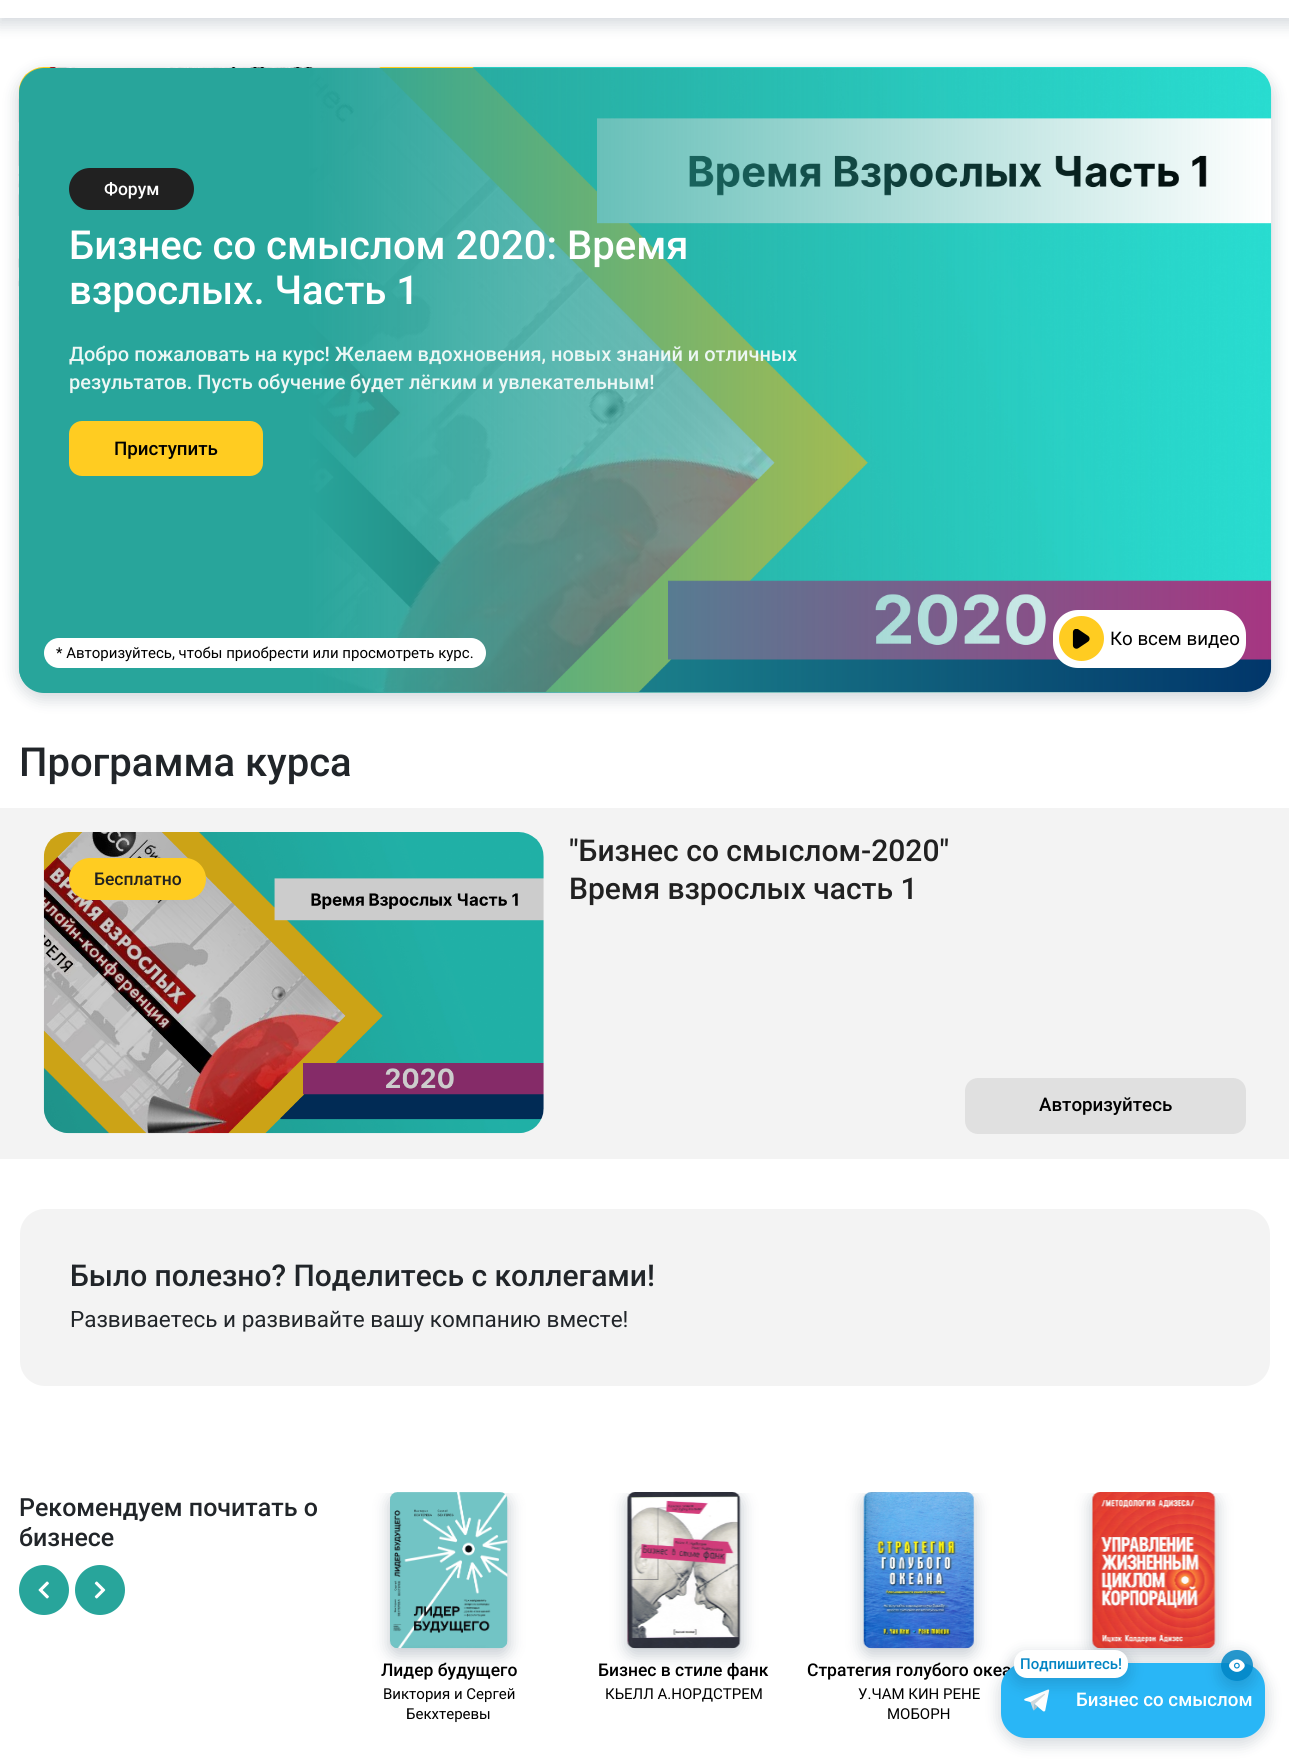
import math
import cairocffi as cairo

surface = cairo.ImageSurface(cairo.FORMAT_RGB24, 1289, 1762)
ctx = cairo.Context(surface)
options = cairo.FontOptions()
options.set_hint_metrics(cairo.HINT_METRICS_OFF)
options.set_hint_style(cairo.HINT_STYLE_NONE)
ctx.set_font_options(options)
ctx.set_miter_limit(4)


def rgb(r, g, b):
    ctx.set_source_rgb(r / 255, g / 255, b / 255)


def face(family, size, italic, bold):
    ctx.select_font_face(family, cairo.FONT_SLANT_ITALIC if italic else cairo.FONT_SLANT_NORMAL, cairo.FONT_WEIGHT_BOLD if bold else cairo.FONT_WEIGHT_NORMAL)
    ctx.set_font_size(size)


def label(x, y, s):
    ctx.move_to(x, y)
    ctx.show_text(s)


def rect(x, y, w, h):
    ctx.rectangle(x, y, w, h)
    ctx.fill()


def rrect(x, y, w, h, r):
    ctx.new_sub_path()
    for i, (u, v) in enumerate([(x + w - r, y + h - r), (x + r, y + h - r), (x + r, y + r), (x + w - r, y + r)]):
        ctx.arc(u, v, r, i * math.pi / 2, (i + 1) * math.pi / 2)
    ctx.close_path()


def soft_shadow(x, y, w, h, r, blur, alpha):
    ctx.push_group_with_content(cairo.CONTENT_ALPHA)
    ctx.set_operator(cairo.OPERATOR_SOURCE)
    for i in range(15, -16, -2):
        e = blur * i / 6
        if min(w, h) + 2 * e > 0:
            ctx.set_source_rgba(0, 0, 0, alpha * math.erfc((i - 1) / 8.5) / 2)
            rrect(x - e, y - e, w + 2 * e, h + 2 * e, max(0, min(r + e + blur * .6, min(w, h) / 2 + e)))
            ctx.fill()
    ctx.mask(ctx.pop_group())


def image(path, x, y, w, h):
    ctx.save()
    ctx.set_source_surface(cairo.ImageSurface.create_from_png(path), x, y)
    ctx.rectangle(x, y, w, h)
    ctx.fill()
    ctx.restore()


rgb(255, 255, 255)
ctx.paint()
ctx.save()
ctx.set_fill_rule(cairo.FILL_RULE_EVEN_ODD)
ctx.new_path()
ctx.move_to(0, 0)
ctx.line_to(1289, 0)
ctx.line_to(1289, 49)
ctx.line_to(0, 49)
ctx.close_path()
ctx.move_to(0, -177)
ctx.line_to(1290, -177)
ctx.line_to(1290, 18)
ctx.line_to(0, 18)
ctx.close_path()
ctx.clip()
rgb(0, 26, 52)
soft_shadow(-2, -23, 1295, 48, 0, 7.5, 0.16)
ctx.restore()
rgb(0, 26, 52)
soft_shadow(16, 70, 1258, 630, 28, 7.5, 0.16)
image('image0.png', 18, 67, 1254, 625)
gradient = cairo.LinearGradient(1271, 380, 19, 380)
gradient.add_color_stop_rgba(0, 0.157, 0.647, 0.608, 0)
gradient.add_color_stop_rgba(0.77, 0.157, 0.647, 0.608, 1)
gradient.add_color_stop_rgba(1, 0.157, 0.647, 0.608, 1)
ctx.set_source(gradient)
rrect(19, 68, 1252, 625, 25)
ctx.fill()
rgb(33, 33, 33)
rrect(69, 168, 125, 42, 21)
ctx.fill()
face('Roboto Medium', 17.5, 0, 0)
rgb(255, 255, 255)
label(104, 195, 'Форум')
face('Roboto Medium', 40, 0, 0)
label(69, 259, 'Бизнес со смыслом 2020: Время')
label(69, 304, 'взрослых. Часть 1')
face('Roboto Medium', 20, 0, 0)
rgb(236, 247, 245)
label(69, 361, 'Добро пожаловать на курс! Желаем вдохновения, новых знаний и отличных')
label(69, 389, 'результатов. Пусть обучение')
label(350, 389, 'будет лёгким и увлекательным!')
rgb(255, 204, 33)
rrect(69, 421, 194, 55, 13)
ctx.fill()
face('Roboto Medium', 18.75, 0, 0)
rgb(0, 0, 0)
label(114, 455, 'Приступить')
rgb(255, 255, 255)
rrect(1053, 610, 193, 58, 25)
ctx.fill()
rgb(255, 204, 33)
ctx.arc(1081.5, 638.5, 22.5, 0, 2 * math.pi)
ctx.fill()
image('image1.png', 1072, 629, 18, 20)
face('Roboto', 18.75, 0, 0)
rgb(0, 0, 0)
label(1110, 645, 'Ко всем видео')
rgb(255, 255, 255)
rrect(44, 638, 442, 30, 15)
ctx.fill()
face('Roboto', 15, 0, 0)
rgb(0, 0, 0)
label(56, 658, '* Авторизуйтесь, чтобы приобрести или просмотреть курс.')
face('Roboto Medium', 40, 0, 0)
rgb(33, 37, 41)
label(19, 776, 'Программа курса')
rgb(243, 243, 243)
rect(0, 808, 1289, 351)
image('image2.png', 43, 832, 501, 302)
rgb(255, 204, 33)
rrect(69, 858, 137, 42, 21)
ctx.fill()
face('Roboto Medium', 17.5, 0, 0)
rgb(33, 33, 33)
label(94, 885, 'Бесплатно')
face('Roboto Medium', 30, 0, 0)
label(569, 861, '"Бизнес со смыслом-2020"')
label(569, 899, 'Время взрослых часть 1')
rgb(224, 224, 224)
rrect(965, 1078, 281, 56, 13)
ctx.fill()
face('Roboto Medium', 18.75, 0, 0)
rgb(0, 0, 0)
label(1039, 1111, 'Авторизуйтесь')
rgb(243, 243, 243)
rrect(20, 1209, 1250, 177, 25)
ctx.fill()
face('Roboto Medium', 30, 0, 0)
rgb(33, 37, 41)
label(70, 1286, 'Было полезно? Поделитесь с коллегами!')
face('Roboto', 22.5, 0, 0)
label(70, 1327, 'Развиваетесь и развивайте вашу компанию вместе!')
face('Roboto Medium', 25, 0, 0)
label(19, 1516, 'Рекомендуем почитать о')
label(19, 1546, 'бизнесе')
rgb(40, 165, 155)
ctx.new_path()
ctx.arc(44, 1590, 25, 0, 2 * math.pi)
ctx.fill()
image('image3.png', 38, 1581, 11, 18)
ctx.arc(100, 1590, 25, 0, 2 * math.pi)
ctx.fill()
image('image4.png', 94, 1581, 12, 18)
ctx.save()
ctx.rectangle(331, 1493, 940, 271)
ctx.clip()
rgb(0, 26, 52)
soft_shadow(1090, 1495, 128, 161, 10, 7.5, 0.2)
ctx.restore()
image('image5.png', 1092, 1492, 124, 157)
ctx.save()
ctx.rectangle(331, 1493, 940, 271)
ctx.clip()
rgb(0, 26, 52)
soft_shadow(388, 1495, 122, 161, 10, 7.5, 0.2)
ctx.restore()
image('image6.png', 390, 1492, 118, 157)
face('Roboto Medium', 17.5, 0, 0)
rgb(0, 0, 0)
label(381, 1676, 'Лидер будущего')
face('Roboto', 15, 0, 0)
label(383, 1699, 'Виктория и Сергей')
label(406, 1719, 'Бекхтеревы')
ctx.save()
ctx.rectangle(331, 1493, 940, 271)
ctx.clip()
rgb(0, 26, 52)
soft_shadow(625, 1495, 118, 161, 10, 7.5, 0.2)
ctx.restore()
image('image7.png', 627, 1492, 114, 157)
face('Roboto Medium', 17.5, 0, 0)
label(598, 1676, 'Бизнес в стиле фанк')
face('Roboto', 15, 0, 0)
label(605, 1699, 'КЬЕЛЛ А.НОРДСТРЕМ')
ctx.save()
ctx.rectangle(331, 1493, 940, 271)
ctx.clip()
rgb(0, 26, 52)
soft_shadow(861, 1495, 115, 161, 10, 7.5, 0.2)
ctx.restore()
image('image8.png', 863, 1492, 111, 157)
face('Roboto Medium', 17.5, 0, 0)
label(807, 1676, 'Стратегия голубого океа')
face('Roboto', 15, 0, 0)
label(858, 1699, 'У.ЧАМ КИН РЕНЕ')
label(887, 1719, 'МОБОРН')
rgb(0, 26, 52)
soft_shadow(999, 1665, 269, 80, 28, 7.5, 0.16)
rgb(41, 182, 246)
rrect(1001, 1663, 264, 75, 25)
ctx.fill()
ctx.save()
ctx.set_fill_rule(cairo.FILL_RULE_EVEN_ODD)
ctx.new_path()
ctx.move_to(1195, 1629)
ctx.line_to(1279, 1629)
ctx.line_to(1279, 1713)
ctx.line_to(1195, 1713)
ctx.close_path()
ctx.move_to(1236.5, 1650)
ctx.line_to(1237.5, 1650)
ctx.curve_to(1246, 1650, 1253, 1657, 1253, 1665.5)
ctx.curve_to(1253, 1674, 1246, 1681, 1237.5, 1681)
ctx.line_to(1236.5, 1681)
ctx.curve_to(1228, 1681, 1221, 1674, 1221, 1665.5)
ctx.curve_to(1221, 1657, 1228, 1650, 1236.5, 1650)
ctx.close_path()
ctx.clip()
rgb(0, 26, 52)
soft_shadow(1219, 1653, 36, 36, 18, 7.5, 0.16)
ctx.restore()
ctx.set_source_rgba(0.004, 0.518, 0.765, 0.85)
rrect(1221, 1650, 32, 31, 15.5)
ctx.fill()
image('image9.png', 1229, 1659, 16, 13)
image('image10.png', 1024, 1689, 26, 23)
rgb(0, 26, 52)
soft_shadow(1011, 1653, 119, 32, 15, 7.5, 0.16)
rgb(255, 255, 255)
rrect(1014, 1650, 114, 28, 13)
ctx.fill()
face('Roboto Medium', 15, 0, 0)
rgb(1, 132, 195)
label(1020, 1669, 'Подпишитесь!')
face('Roboto Medium', 18.75, 0, 0)
rgb(255, 255, 255)
label(1076, 1706, 'Бизнес со смыслом')
surface.write_to_png('render.png')
